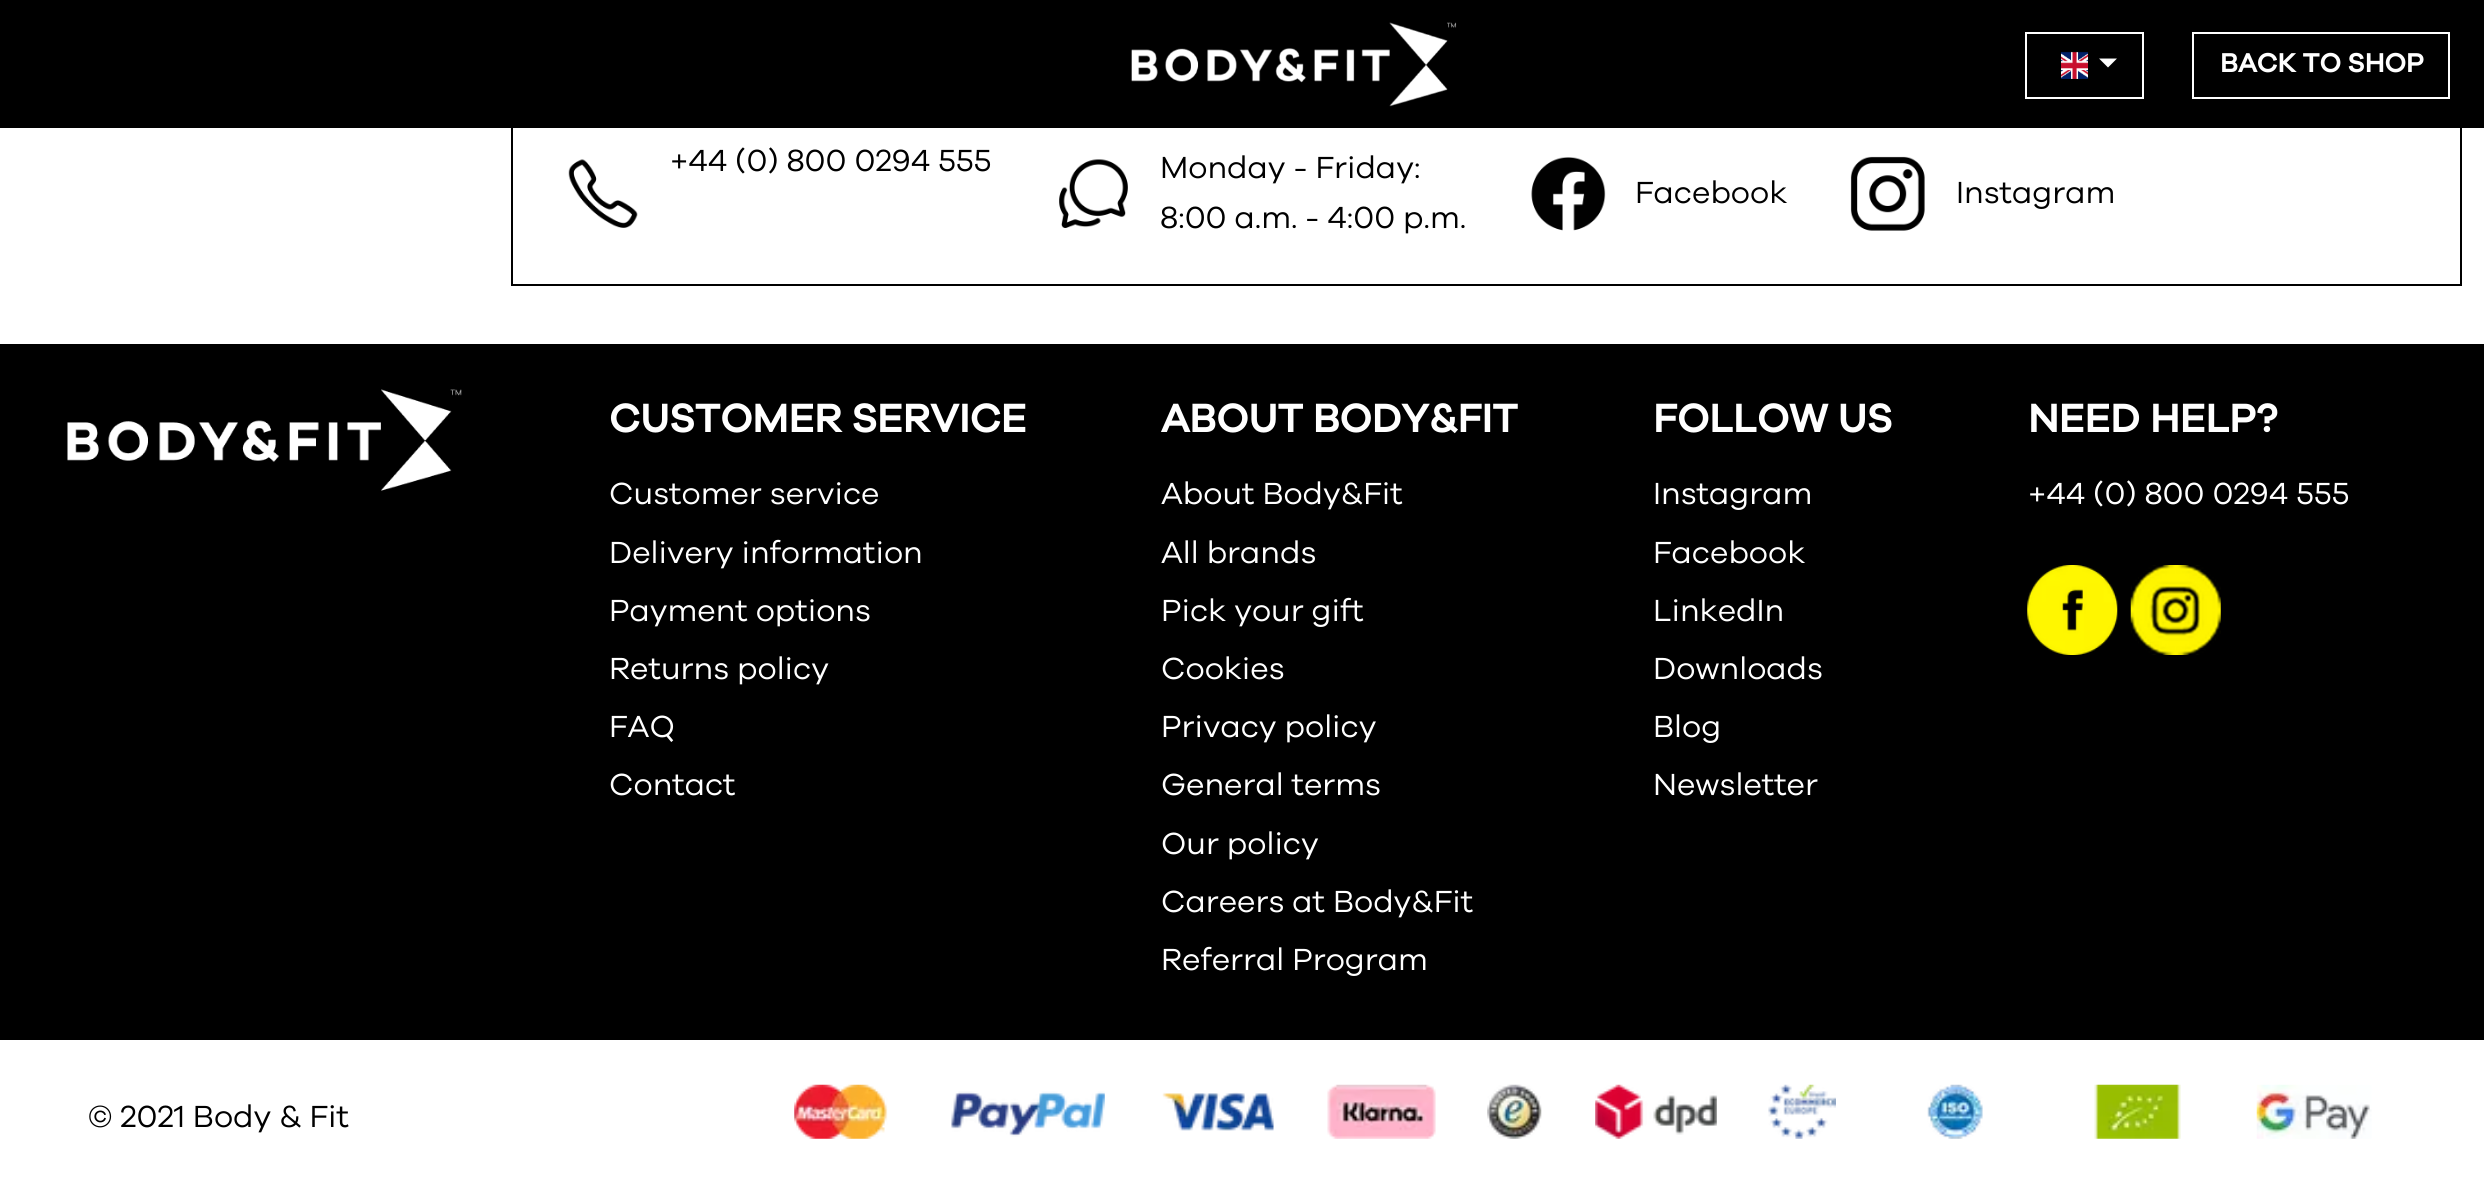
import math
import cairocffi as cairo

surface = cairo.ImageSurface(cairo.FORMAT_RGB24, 2484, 1184)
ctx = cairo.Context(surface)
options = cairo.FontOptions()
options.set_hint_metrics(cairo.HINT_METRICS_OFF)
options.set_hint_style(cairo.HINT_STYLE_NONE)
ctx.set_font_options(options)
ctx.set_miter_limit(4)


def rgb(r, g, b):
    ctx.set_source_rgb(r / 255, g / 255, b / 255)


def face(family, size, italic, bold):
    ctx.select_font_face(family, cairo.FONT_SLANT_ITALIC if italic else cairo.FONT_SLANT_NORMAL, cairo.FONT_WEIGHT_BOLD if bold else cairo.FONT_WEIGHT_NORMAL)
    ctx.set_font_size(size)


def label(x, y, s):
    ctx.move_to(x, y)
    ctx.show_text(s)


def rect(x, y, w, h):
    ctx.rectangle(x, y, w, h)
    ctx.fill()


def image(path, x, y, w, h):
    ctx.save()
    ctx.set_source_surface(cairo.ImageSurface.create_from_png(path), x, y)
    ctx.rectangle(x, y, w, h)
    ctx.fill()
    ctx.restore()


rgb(255, 255, 255)
ctx.paint()
ctx.rectangle(512, 17, 1949, 268)
rgb(0, 0, 0)
ctx.stroke()
rect(0, 0, 2484, 128)
image('image0.png', 1131, 22, 326, 85)
ctx.rectangle(2026, 33, 117, 65)
rgb(255, 255, 255)
ctx.stroke()
image('image1.png', 2061, 51, 27, 28)
ctx.new_path()
ctx.move_to(2099, 58.5)
ctx.line_to(2117, 58.5)
ctx.line_to(2108, 67.5)
ctx.close_path()
ctx.fill()
ctx.rectangle(2193, 33, 256, 65)
ctx.stroke()
face('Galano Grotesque', 27, 0, 1)
label(2220, 72, 'BACK TO SHOP')
image('image2.png', 568, 159, 70, 69)
face('Galano Grotesque', 31.5, 0, 0)
rgb(0, 0, 0)
label(670, 171, '+44 (0) 800 0294 555')
image('image3.png', 1059, 159, 69, 69)
label(1160, 178, 'Monday - Friday:')
label(1160, 228, '8:00 a.m. - 4:00 p.m.')
image('image4.png', 1531, 157, 75, 74)
label(1635, 203, 'Facebook')
image('image5.png', 1850, 156, 75, 75)
label(1956, 203, 'Instagram')
rect(0, 344, 2484, 696)
image('image6.png', 67, 389, 395, 102)
face('Galano Grotesque', 40.5, 0, 1)
rgb(255, 255, 255)
label(609, 432, 'CUSTOMER SERVICE')
face('Galano Grotesque', 31.5, 0, 0)
label(609, 504, 'Customer service')
label(609, 563, 'Delivery information')
label(609, 621, 'Payment options')
label(609, 679, 'Returns policy')
label(609, 737, 'FAQ')
label(609, 795, 'Contact')
face('Galano Grotesque', 40.5, 0, 1)
label(1161, 432, 'ABOUT BODY&FIT')
face('Galano Grotesque', 31.5, 0, 0)
label(1161, 504, 'About Body&Fit')
label(1161, 563, 'All brands')
label(1161, 621, 'Pick your gift')
label(1161, 679, 'Cookies')
label(1161, 737, 'Privacy policy')
label(1161, 795, 'General terms')
label(1161, 854, 'Our policy')
label(1161, 912, 'Careers at Body&Fit')
label(1161, 970, 'Referral Program')
face('Galano Grotesque', 40.5, 0, 1)
label(1653, 432, 'FOLLOW US')
face('Galano Grotesque', 31.5, 0, 0)
label(1653, 504, 'Instagram')
label(1653, 563, 'Facebook')
label(1653, 621, 'LinkedIn')
label(1653, 679, 'Downloads')
label(1653, 737, 'Blog')
label(1653, 795, 'Newsletter')
face('Galano Grotesque', 40.5, 0, 1)
label(2028, 432, 'NEED HELP?')
face('Galano Grotesque', 31.5, 0, 0)
label(2028, 504, '+44 (0) 800 0294 555')
image('image7.png', 2027, 565, 91, 90)
image('image8.png', 2130, 565, 91, 90)
rgb(0, 0, 0)
label(88, 1127, '© 2021 Body & Fit')
image('image9.png', 794, 1084, 94, 55)
image('image10.png', 951, 1091, 154, 46)
image('image11.png', 1162, 1092, 112, 39)
image('image12.png', 1327, 1084, 109, 55)
image('image13.png', 1487, 1084, 55, 55)
image('image14.png', 1595, 1084, 122, 55)
image('image15.png', 1768, 1084, 68, 55)
image('image16.png', 1927, 1084, 56, 55)
image('image17.png', 2094, 1084, 87, 55)
image('image18.png', 2256, 1084, 116, 55)
surface.write_to_png('render.png')
